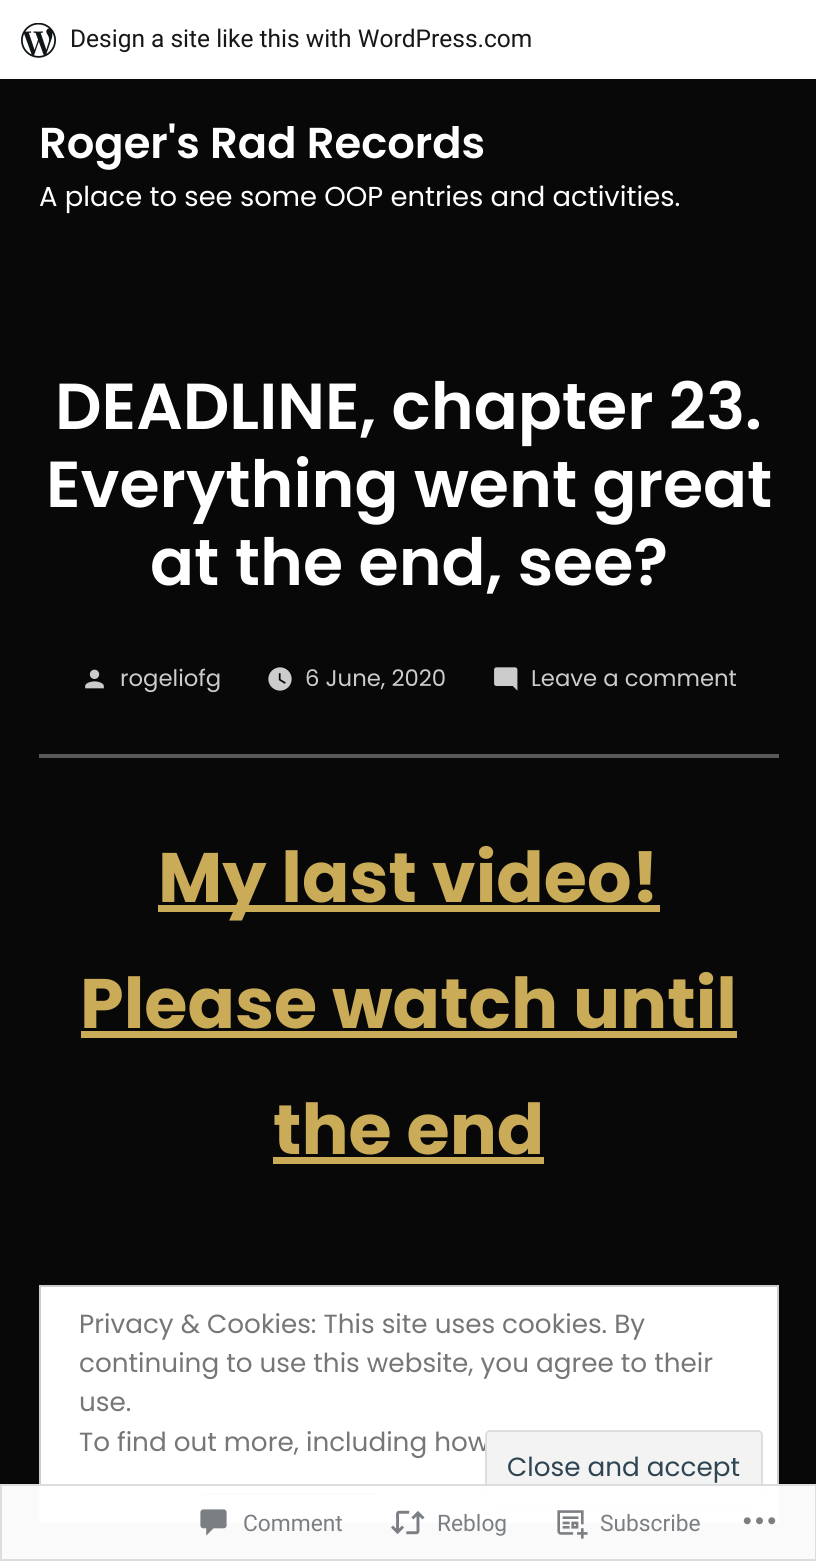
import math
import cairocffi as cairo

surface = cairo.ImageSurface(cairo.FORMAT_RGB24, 816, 1561)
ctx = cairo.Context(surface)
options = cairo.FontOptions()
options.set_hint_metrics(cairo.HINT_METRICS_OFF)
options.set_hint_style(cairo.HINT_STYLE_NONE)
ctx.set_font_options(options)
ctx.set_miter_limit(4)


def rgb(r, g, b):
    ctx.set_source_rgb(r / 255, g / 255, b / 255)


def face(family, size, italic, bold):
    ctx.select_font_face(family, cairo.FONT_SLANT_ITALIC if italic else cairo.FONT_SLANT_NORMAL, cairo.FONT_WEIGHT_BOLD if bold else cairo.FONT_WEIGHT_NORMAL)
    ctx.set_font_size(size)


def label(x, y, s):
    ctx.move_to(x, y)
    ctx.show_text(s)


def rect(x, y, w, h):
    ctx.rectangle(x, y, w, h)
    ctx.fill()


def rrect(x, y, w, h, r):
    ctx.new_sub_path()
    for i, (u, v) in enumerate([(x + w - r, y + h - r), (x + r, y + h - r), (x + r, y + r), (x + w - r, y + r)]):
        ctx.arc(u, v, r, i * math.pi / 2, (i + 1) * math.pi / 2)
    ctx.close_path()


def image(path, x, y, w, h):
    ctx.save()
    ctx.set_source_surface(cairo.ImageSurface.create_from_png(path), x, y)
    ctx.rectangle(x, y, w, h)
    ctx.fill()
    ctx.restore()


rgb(8, 8, 8)
ctx.paint()
rgb(255, 255, 255)
rect(0, 0, 816, 79)
image('image0.png', 21, 23, 35, 35)
face('Roboto', 24.5, 0, 0)
rgb(23, 23, 23)
label(70, 47, 'Design a site like this with WordPress.com')
face('Poppins SemiBold', 43.25, 0, 0)
rgb(255, 255, 255)
label(39, 158, 'Roger\'s Rad Records')
face('Poppins', 27.4, 0, 0)
label(39, 206, 'A place to see some OOP entries and activities.')
face('Poppins SemiBold', 65, 0, 0)
label(55, 429, 'DEADLINE, chapter 23.')
label(46, 507, 'Everything went great')
label(150, 585, 'at the end, see?')
image('image1.png', 85, 669, 19, 20)
face('Poppins', 22.75, 0, 0)
rgb(204, 204, 204)
label(120, 686, 'rogeliofg')
image('image2.png', 268, 667, 24, 24)
label(305, 686, '6 June, 2020')
image('image3.png', 494, 667, 24, 24)
label(531, 686, 'Leave a comment')
rgb(89, 89, 89)
rect(39, 754, 740, 4)
rgb(202, 171, 87)
rect(158, 905, 502, 7)
face('Poppins', 70, 0, 1)
label(158, 902, 'My last video!')
label(80, 1028, 'Please watch until')
rect(81, 1031, 656, 7)
label(273, 1154, 'the end')
rect(273, 1157, 271, 7)
rgb(255, 255, 255)
ctx.rectangle(40, 1286, 738, 236)
ctx.fill_preserve()
rgb(204, 204, 204)
ctx.stroke()
face('Poppins', 26.25, 0, 0)
rgb(118, 118, 118)
label(79, 1333, 'Privacy & Cookies: This site uses cookies. By')
label(79, 1372, 'continuing to use this website, you agree to their')
label(79, 1411, 'use.')
label(79, 1451, 'To find out more, including how')
rgb(243, 243, 243)
rrect(486, 1431, 276, 75, 4)
ctx.fill_preserve()
rgb(222, 222, 222)
ctx.stroke()
rgb(46, 68, 83)
label(507, 1476, 'Close and accept')
rgb(118, 118, 118)
rect(203, 1493, 173, 2)
ctx.set_source_rgba(1, 1, 1, 0.98)
rect(0, 1484, 816, 77)
ctx.rectangle(1, 1485, 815, 75)
ctx.set_source_rgba(0.863, 0.863, 0.871, 0.98)
ctx.stroke()
image('image4.png', 200, 1509, 27, 27)
face('Roboto', 22.75, 0, 0)
rgb(123, 127, 132)
label(243, 1531, 'Comment')
image('image5.png', 391, 1510, 34, 25)
label(437, 1531, 'Reblog')
image('image6.png', 557, 1510, 31, 29)
label(600, 1531, 'Subscribe')
image('image7.png', 743, 1517, 33, 8)
surface.write_to_png('render.png')
